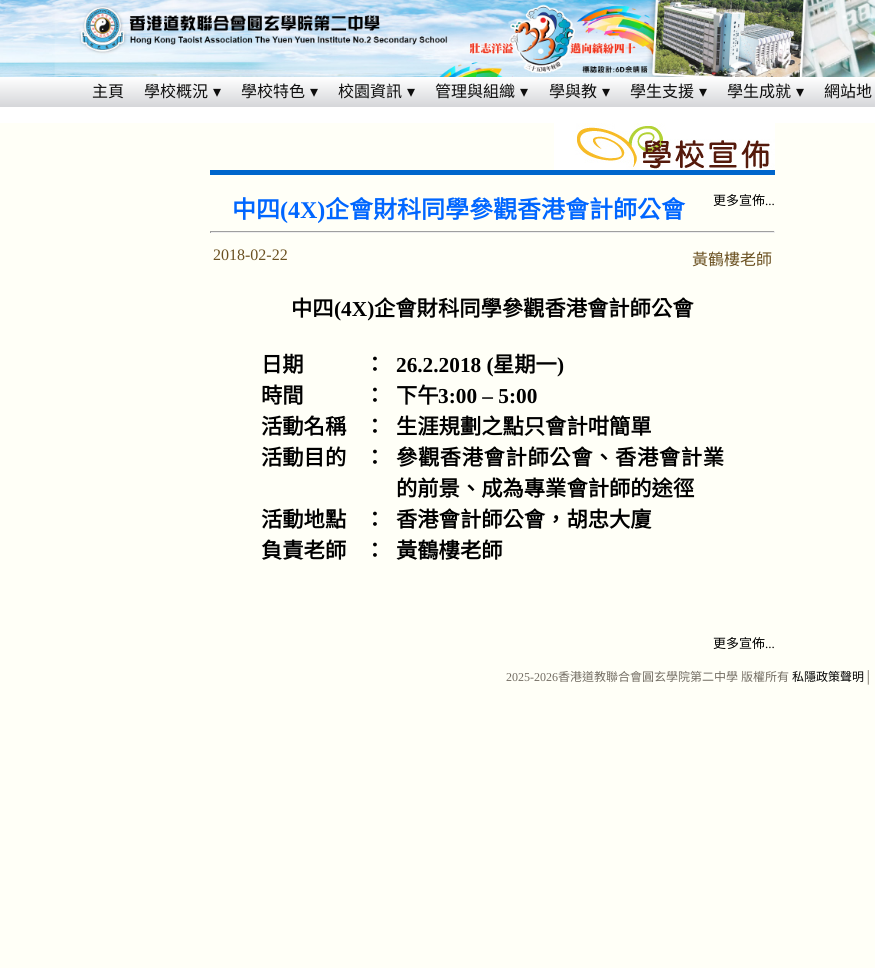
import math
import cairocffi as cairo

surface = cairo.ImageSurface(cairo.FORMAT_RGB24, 875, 968)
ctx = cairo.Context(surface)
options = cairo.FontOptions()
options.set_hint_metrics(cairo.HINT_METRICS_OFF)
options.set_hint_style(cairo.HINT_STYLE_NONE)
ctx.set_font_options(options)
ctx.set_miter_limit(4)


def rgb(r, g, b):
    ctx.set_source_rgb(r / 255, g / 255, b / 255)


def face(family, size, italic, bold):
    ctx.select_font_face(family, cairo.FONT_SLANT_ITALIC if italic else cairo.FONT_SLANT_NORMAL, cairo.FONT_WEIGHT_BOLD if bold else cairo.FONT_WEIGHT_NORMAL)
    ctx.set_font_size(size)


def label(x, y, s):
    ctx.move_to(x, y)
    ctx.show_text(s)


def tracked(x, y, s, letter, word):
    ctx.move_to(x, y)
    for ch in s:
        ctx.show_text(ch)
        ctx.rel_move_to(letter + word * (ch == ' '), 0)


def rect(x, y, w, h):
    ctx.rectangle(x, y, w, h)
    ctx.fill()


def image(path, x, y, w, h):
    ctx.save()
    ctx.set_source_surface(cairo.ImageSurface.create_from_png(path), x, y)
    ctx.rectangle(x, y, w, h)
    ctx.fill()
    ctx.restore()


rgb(255, 255, 247)
ctx.paint()
image('image0.png', 0, 0, 875, 77)
gradient = cairo.LinearGradient(490, 77, 490, 107)
gradient.add_color_stop_rgba(0, 1, 1, 1, 1)
gradient.add_color_stop_rgba(1, 0.835, 0.839, 0.851, 1)
ctx.set_source(gradient)
rect(0, 77, 875, 30)
face('Noto Sans CJK TC', 16, 0, 0)
rgb(13, 13, 13)
label(92, 97, '主頁')
label(144, 97, '學校概況')
face('DejaVu Sans', 16, 0, 0)
label(213, 97, '▾')
face('Noto Sans CJK TC', 16, 0, 0)
label(241, 97, '學校特色')
face('DejaVu Sans', 16, 0, 0)
label(310, 97, '▾')
face('Noto Sans CJK TC', 16, 0, 0)
label(338, 97, '校園資訊')
face('DejaVu Sans', 16, 0, 0)
label(407, 97, '▾')
face('Noto Sans CJK TC', 16, 0, 0)
label(435, 97, '管理與組織')
face('DejaVu Sans', 16, 0, 0)
label(520, 97, '▾')
face('Noto Sans CJK TC', 16, 0, 0)
label(549, 97, '學與教')
face('DejaVu Sans', 16, 0, 0)
label(602, 97, '▾')
face('Noto Sans CJK TC', 16, 0, 0)
label(630, 97, '學生支援')
face('DejaVu Sans', 16, 0, 0)
label(699, 97, '▾')
face('Noto Sans CJK TC', 16, 0, 0)
label(727, 97, '學生成就')
face('DejaVu Sans', 16, 0, 0)
label(796, 97, '▾')
face('Noto Sans CJK TC', 16, 0, 0)
label(824, 97, '網站地')
rgb(255, 255, 255)
rect(0, 107, 875, 16)
image('image1.png', 554, 123, 221, 47)
rgb(0, 102, 204)
rect(210, 170, 565, 5)
face('Noto Sans CJK TC', 24, 0, 1)
rgb(0, 102, 255)
label(232, 218, '中四')
face('Liberation Serif', 24, 0, 1)
label(280, 218, '(4X)')
face('Noto Sans CJK TC', 24, 0, 1)
label(325, 218, '企會財科同學參觀香港會計師公會')
face('Noto Sans CJK TC', 13, 0, 0)
rgb(0, 0, 0)
label(713, 205, '更多宣佈')
face('Liberation Serif', 13, 0, 0)
label(765, 205, '...')
rgb(159, 159, 159)
rect(210, 231, 565, 1)
rgb(238, 238, 238)
rect(774, 231, 1, 2)
rect(210, 232, 565, 1)
rgb(159, 159, 159)
rect(210, 231, 1, 2)
face('Liberation Serif', 16, 0, 0)
rgb(107, 81, 33)
label(213, 260, '2018-02-22')
face('Noto Sans CJK TC', 16, 0, 0)
label(692, 265, '黃鶴樓老師')
face('Noto Sans CJK TC', 21.3, 0, 1)
rgb(0, 0, 0)
label(291, 316, '中四')
face('Liberation Serif', 21.3, 0, 1)
label(334, 316, '(4X)')
face('Noto Sans CJK TC', 21.3, 0, 1)
label(374, 316, '企會財科同學參觀香港會計師公會')
label(261, 372, '日期')
label(364, 372, '：')
face('Liberation Serif', 21.3, 0, 1)
label(396, 372, '26.2.2018 (')
face('Noto Sans CJK TC', 21.3, 0, 1)
label(493, 372, '星期一')
face('Liberation Serif', 21.3, 0, 1)
label(557, 372, ')')
face('Noto Sans CJK TC', 21.3, 0, 1)
label(261, 403, '時間')
label(364, 403, '：')
label(396, 403, '下午')
face('Liberation Serif', 21.3, 0, 1)
label(438, 403, '3:00 – 5:00')
face('Noto Sans CJK TC', 21.3, 0, 1)
label(261, 434, '活動名稱')
label(364, 434, '：')
label(396, 434, '生涯規劃之點只會計咁簡單')
label(261, 465, '活動目的')
label(364, 465, '：')
tracked(396, 465, '參觀香港會計師公會、香港會計業', 0.6, 0)
label(396, 496, '的前景、成為專業會計師的途徑')
label(261, 527, '活動地點')
label(364, 527, '：')
label(396, 527, '香港會計師公會，胡忠大廈')
label(261, 558, '負責老師')
label(364, 558, '：')
label(396, 558, '黃鶴樓老師')
face('Noto Sans CJK TC', 13, 0, 0)
label(713, 648, '更多宣佈')
face('Liberation Serif', 13, 0, 0)
label(765, 648, '...')
face('Liberation Serif', 12, 0, 0)
rgb(115, 109, 99)
label(506, 681, '2025-2026')
face('Noto Sans CJK TC', 12, 0, 0)
label(558, 681, '香港道教聯合會圓玄學院第二中學')
label(741, 681, '版權所有')
rgb(0, 0, 0)
label(792, 681, '私隱政策聲明')
face('Liberation Serif', 12, 0, 0)
rgb(115, 109, 99)
label(864, 681, '│')
surface.write_to_png('render.png')
